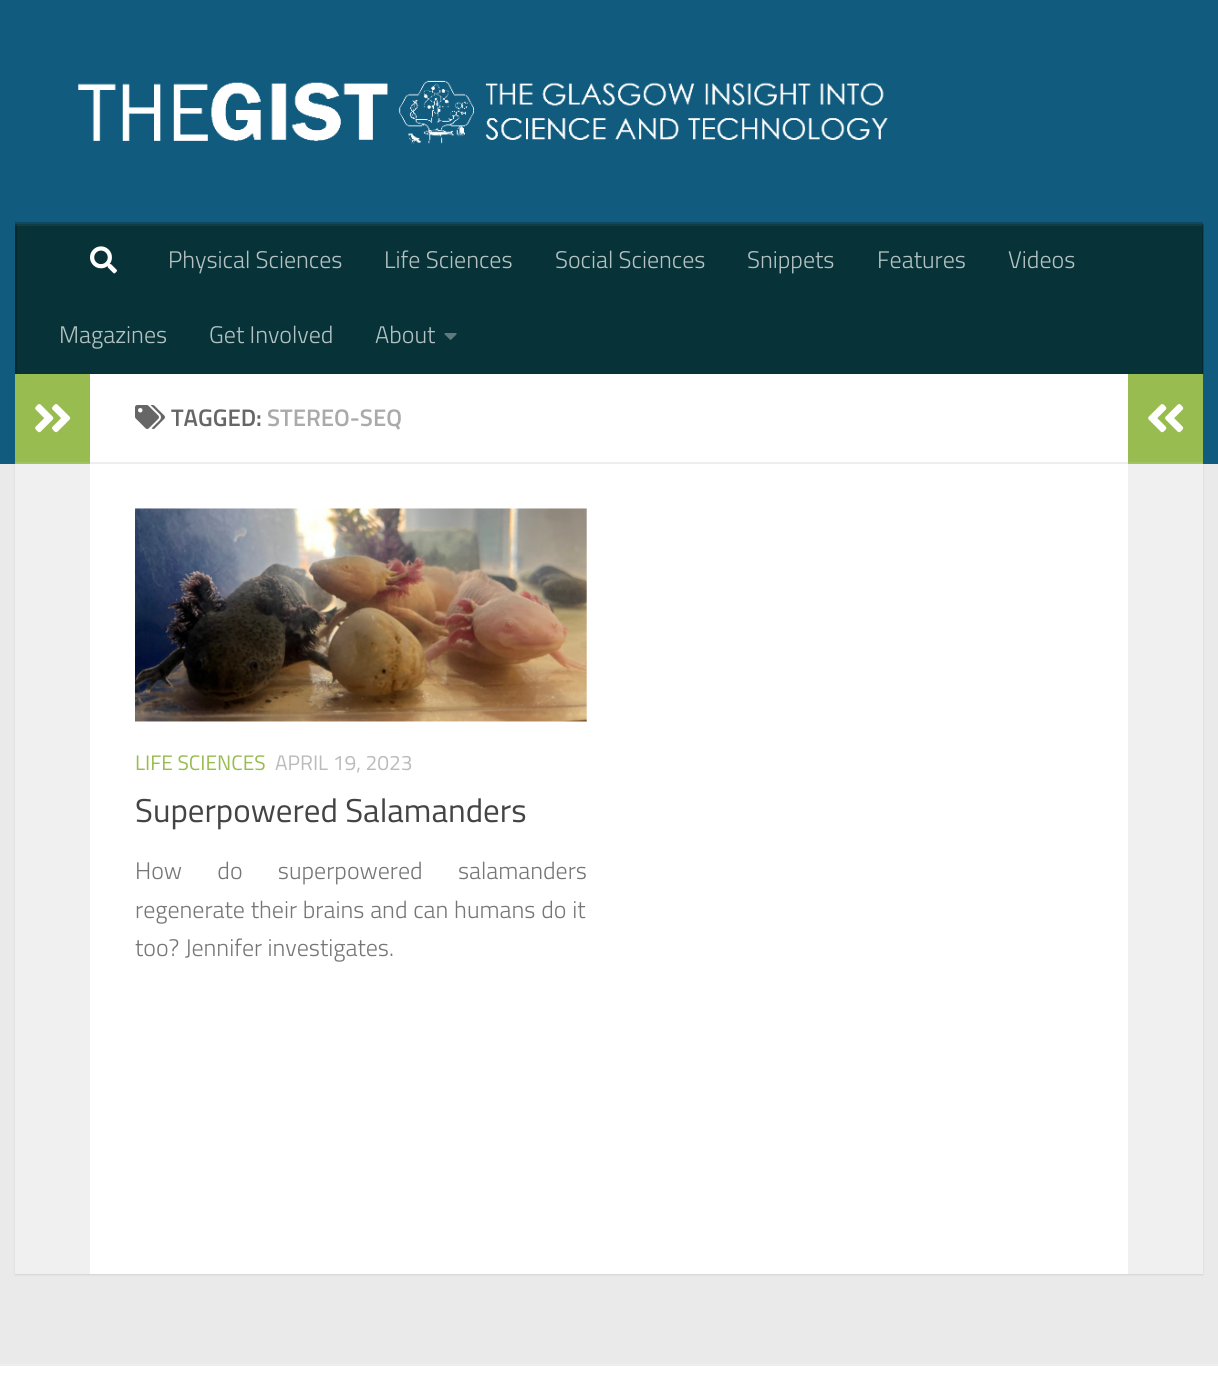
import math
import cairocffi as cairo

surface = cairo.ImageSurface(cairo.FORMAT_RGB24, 1218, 1378)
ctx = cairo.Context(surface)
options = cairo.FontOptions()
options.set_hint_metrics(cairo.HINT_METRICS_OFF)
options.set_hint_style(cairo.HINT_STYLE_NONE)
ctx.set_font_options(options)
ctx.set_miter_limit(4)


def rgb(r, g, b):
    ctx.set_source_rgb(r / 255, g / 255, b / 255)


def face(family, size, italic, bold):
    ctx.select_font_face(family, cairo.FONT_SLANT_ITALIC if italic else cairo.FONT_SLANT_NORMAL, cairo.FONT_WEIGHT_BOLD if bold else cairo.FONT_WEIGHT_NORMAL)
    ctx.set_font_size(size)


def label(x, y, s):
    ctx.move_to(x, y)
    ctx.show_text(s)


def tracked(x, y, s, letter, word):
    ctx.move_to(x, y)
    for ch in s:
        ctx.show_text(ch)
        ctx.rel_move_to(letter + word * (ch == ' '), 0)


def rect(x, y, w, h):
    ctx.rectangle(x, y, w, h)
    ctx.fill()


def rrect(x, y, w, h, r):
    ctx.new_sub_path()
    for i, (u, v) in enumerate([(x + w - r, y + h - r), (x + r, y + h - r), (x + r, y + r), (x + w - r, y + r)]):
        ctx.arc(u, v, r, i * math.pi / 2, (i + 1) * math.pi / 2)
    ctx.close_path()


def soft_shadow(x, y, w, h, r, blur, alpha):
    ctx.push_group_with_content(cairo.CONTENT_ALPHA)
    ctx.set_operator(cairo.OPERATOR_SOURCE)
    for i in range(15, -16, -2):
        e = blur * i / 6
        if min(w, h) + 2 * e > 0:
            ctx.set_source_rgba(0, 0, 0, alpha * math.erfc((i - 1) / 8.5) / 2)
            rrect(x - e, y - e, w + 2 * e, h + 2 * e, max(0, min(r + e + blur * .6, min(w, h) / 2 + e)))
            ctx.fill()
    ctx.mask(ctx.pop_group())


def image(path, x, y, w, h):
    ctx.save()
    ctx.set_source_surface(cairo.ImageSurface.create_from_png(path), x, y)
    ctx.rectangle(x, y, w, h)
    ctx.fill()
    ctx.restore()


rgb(234, 234, 234)
ctx.paint()
rgb(0, 0, 0)
soft_shadow(15, 375, 1188, 900, 0, 1, 0.1)
rgb(16, 91, 126)
rect(0, 0, 1218, 464)
image('image0.png', 78, 80, 810, 64)
rgb(13, 73, 101)
rect(15, 222, 1188, 2)
rgb(7, 51, 56)
rect(17, 224, 1186, 150)
ctx.set_source_rgba(0, 0, 0, 0.2)
rect(1202, 224, 2, 150)
rgb(6, 41, 45)
rect(15, 224, 2, 150)
ctx.set_source_rgba(1, 1, 1, 0.05)
rect(15, 224, 1188, 2)
image('image1.png', 90, 246, 27, 28)
face('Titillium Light', 24, 0, 0)
rgb(181, 194, 195)
label(168, 268, 'Physical Sciences')
label(384, 268, 'Life Sciences')
label(555, 268, 'Social Sciences')
label(747, 268, 'Snippets')
label(877, 268, 'Features')
label(1008, 268, 'Videos')
label(59, 343, 'Magazines')
label(209, 343, 'Get Involved')
label(375, 343, 'About')
image('image2.png', 444, 333, 13, 7)
rgb(255, 255, 255)
rect(90, 374, 1038, 900)
rgb(240, 240, 240)
rect(15, 464, 75, 810)
rgb(152, 188, 79)
rect(15, 374, 75, 88)
rgb(162, 195, 97)
rect(15, 462, 75, 2)
image('image3.png', 35, 404, 36, 29)
rgb(238, 238, 238)
rect(90, 462, 1038, 2)
image('image4.png', 135, 405, 30, 24)
face('Titillium SemiBold', 24, 0, 0)
rgb(102, 102, 102)
label(171, 426, 'TAGGED:')
rgb(170, 170, 170)
label(267, 426, 'STEREO-SEQ')
image('image5.png', 135, 508, 452, 214)
face('Titillium', 21, 0, 0)
rgb(152, 188, 79)
label(135, 770, 'LIFE SCIENCES')
rgb(187, 187, 187)
label(275, 770, 'APRIL 19, 2023')
face('Titillium', 33, 0, 0)
rgb(68, 68, 68)
label(135, 822, 'Superpowered Salamanders')
face('Titillium Light', 24, 0, 0)
rgb(118, 118, 118)
tracked(135, 879, 'How do superpowered salamanders', 0, 30)
tracked(135, 918, 'regenerate their brains and can humans do it', 0, 0.5)
label(135, 956, 'too? Jennifer investigates.')
rgb(152, 188, 79)
rect(1128, 374, 75, 88)
rgb(162, 195, 97)
rect(1128, 462, 75, 2)
image('image6.png', 1148, 404, 36, 29)
rgb(240, 240, 240)
rect(1128, 464, 75, 810)
rgb(255, 255, 255)
rect(0, 1366, 1218, 12)
rgb(238, 238, 238)
rect(0, 1364, 1218, 2)
surface.write_to_png('render.png')
